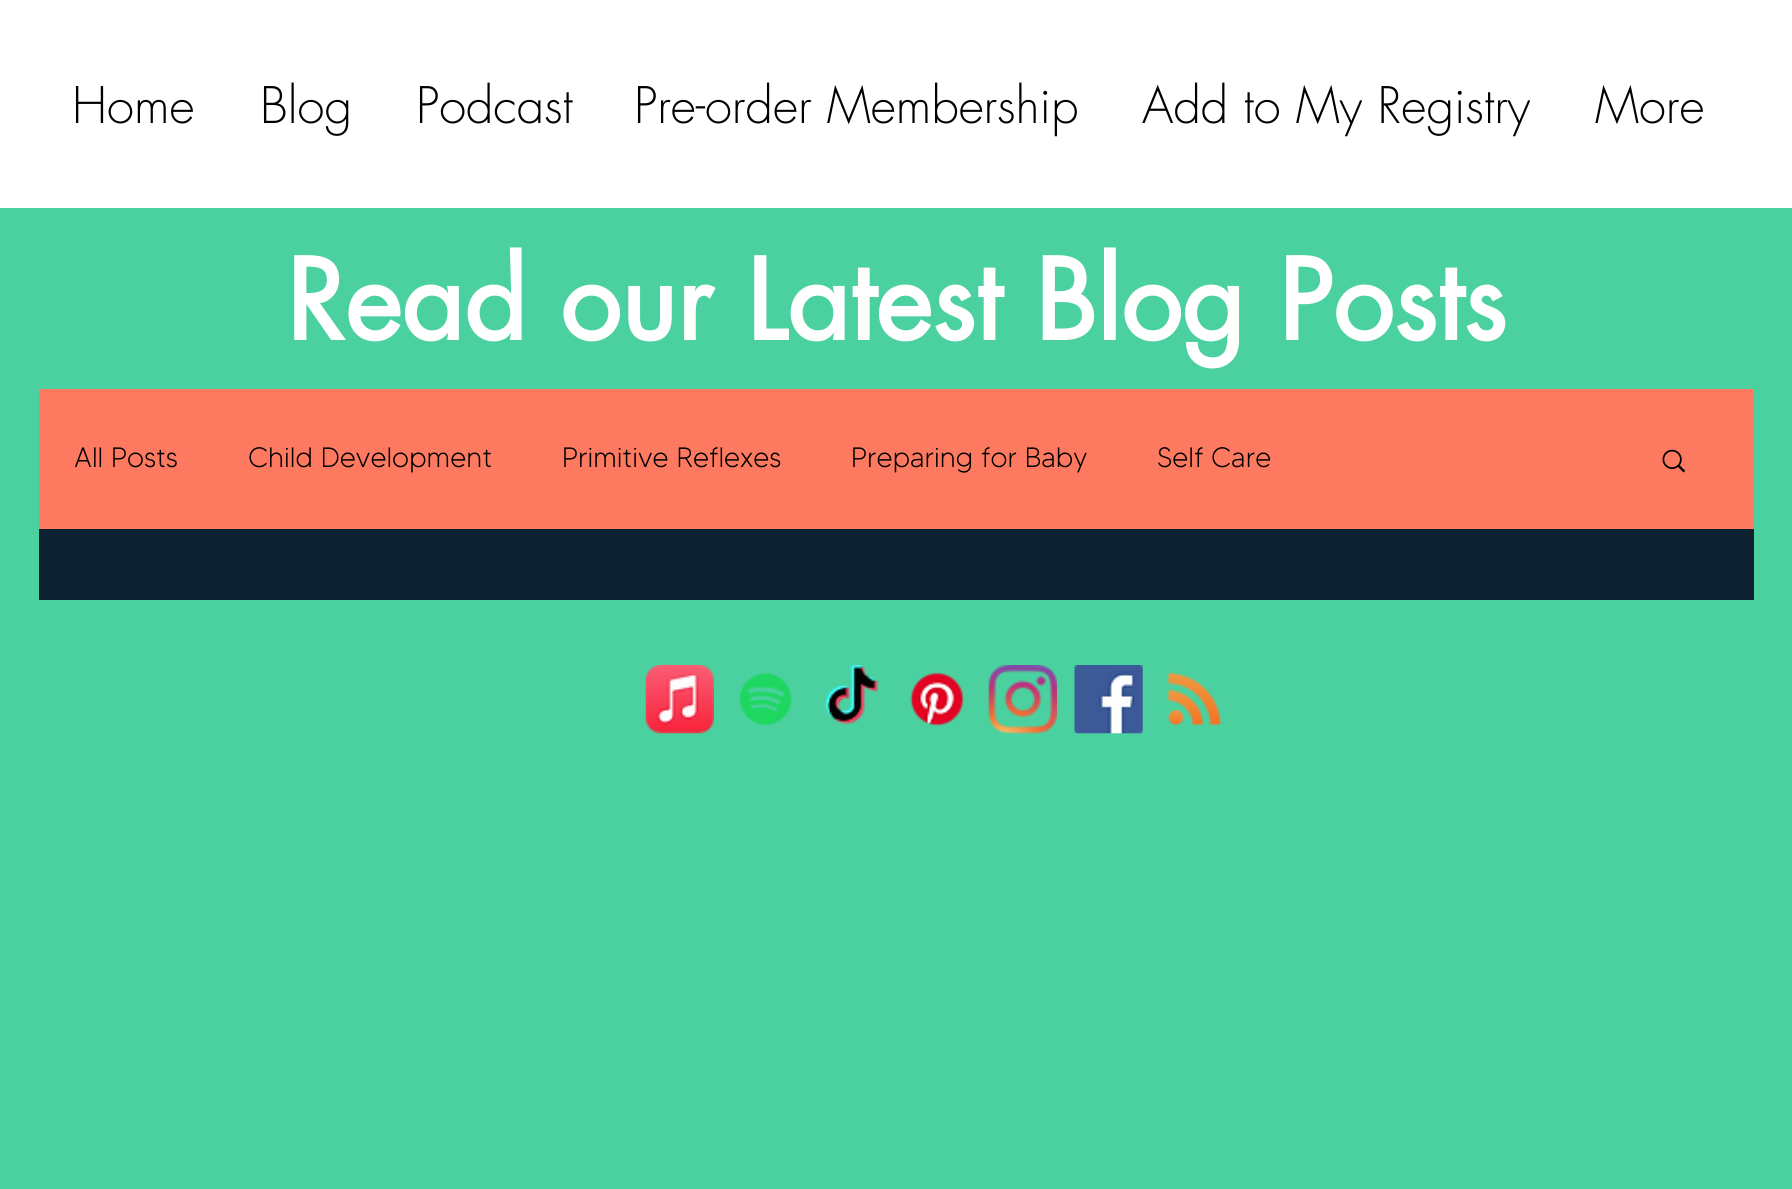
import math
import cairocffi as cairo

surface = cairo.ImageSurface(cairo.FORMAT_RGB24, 1792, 1189)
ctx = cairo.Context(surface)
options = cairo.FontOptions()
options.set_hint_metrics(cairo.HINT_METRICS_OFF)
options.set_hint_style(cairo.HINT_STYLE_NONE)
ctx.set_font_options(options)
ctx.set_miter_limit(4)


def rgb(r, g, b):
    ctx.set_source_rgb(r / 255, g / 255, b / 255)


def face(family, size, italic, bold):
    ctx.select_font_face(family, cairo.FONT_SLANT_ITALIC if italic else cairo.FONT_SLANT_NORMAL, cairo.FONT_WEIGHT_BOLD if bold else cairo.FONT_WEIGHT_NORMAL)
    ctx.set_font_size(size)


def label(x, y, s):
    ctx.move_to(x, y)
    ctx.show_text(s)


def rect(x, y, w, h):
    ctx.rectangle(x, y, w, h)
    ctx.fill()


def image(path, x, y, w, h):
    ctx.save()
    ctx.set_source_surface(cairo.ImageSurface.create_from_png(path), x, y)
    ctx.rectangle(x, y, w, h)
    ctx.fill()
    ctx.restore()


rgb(75, 209, 160)
ctx.paint()
rgb(255, 255, 255)
rect(0, 0, 1792, 208)
face('futura Light', 49, 0, 0)
rgb(0, 0, 0)
label(72, 123, 'Home')
label(260, 123, 'Blog')
label(416, 123, 'Podcast')
label(634, 123, 'Pre-order Membership')
label(1142, 123, 'Add to My Registry')
label(1595, 123, 'More')
face('futura', 108.5, 0, 1)
rgb(255, 255, 255)
label(286, 340, 'Read our Latest Blog Posts')
rgb(13, 33, 48)
rect(39, 529, 1715, 71)
rgb(253, 122, 97)
rect(39, 389, 1715, 140)
face('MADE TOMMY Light', 28, 0, 0)
rgb(0, 0, 0)
label(74, 467, 'All Posts')
label(248, 467, 'Child Development')
label(562, 467, 'Primitive Reflexes')
label(851, 467, 'Preparing for Baby')
label(1157, 467, 'Self Care')
image('image0.png', 1662, 449, 24, 24)
image('image1.png', 645, 665, 69, 69)
image('image2.png', 738, 672, 55, 54)
image('image3.png', 825, 665, 54, 60)
image('image4.png', 909, 671, 56, 56)
image('image5.png', 988, 665, 69, 69)
image('image6.png', 1074, 665, 69, 69)
image('image7.png', 1166, 671, 56, 55)
surface.write_to_png('render.png')
